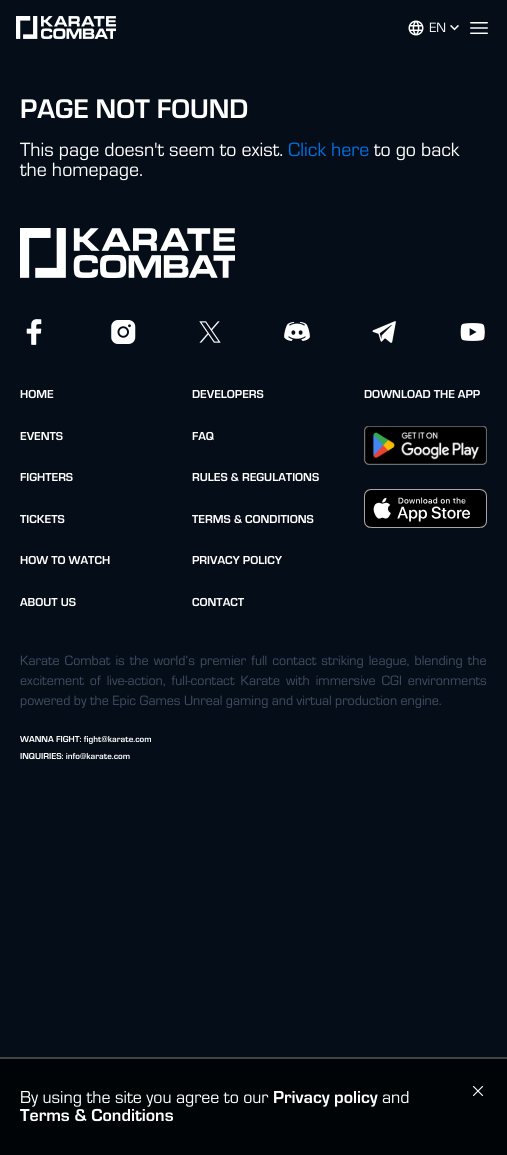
import math
import cairocffi as cairo

surface = cairo.ImageSurface(cairo.FORMAT_RGB24, 507, 1155)
ctx = cairo.Context(surface)
options = cairo.FontOptions()
options.set_hint_metrics(cairo.HINT_METRICS_OFF)
options.set_hint_style(cairo.HINT_STYLE_NONE)
ctx.set_font_options(options)
ctx.set_miter_limit(4)


def rgb(r, g, b):
    ctx.set_source_rgb(r / 255, g / 255, b / 255)


def face(family, size, italic, bold):
    ctx.select_font_face(family, cairo.FONT_SLANT_ITALIC if italic else cairo.FONT_SLANT_NORMAL, cairo.FONT_WEIGHT_BOLD if bold else cairo.FONT_WEIGHT_NORMAL)
    ctx.set_font_size(size)


def label(x, y, s):
    ctx.move_to(x, y)
    ctx.show_text(s)


def tracked(x, y, s, letter, word):
    ctx.move_to(x, y)
    for ch in s:
        ctx.show_text(ch)
        ctx.rel_move_to(letter + word * (ch == ' '), 0)


def rect(x, y, w, h):
    ctx.rectangle(x, y, w, h)
    ctx.fill()


def image(path, x, y, w, h):
    ctx.save()
    ctx.set_source_surface(cairo.ImageSurface.create_from_png(path), x, y)
    ctx.rectangle(x, y, w, h)
    ctx.fill()
    ctx.restore()


rgb(5, 14, 24)
ctx.paint()
image('image0.png', 16, 16, 100, 23)
image('image1.png', 408, 20, 16, 16)
face('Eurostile', 14, 0, 0)
rgb(255, 255, 255)
label(429, 32, 'EN')
image('image2.png', 450, 25, 9, 6)
image('image3.png', 470, 22, 18, 12)
face('Eurostile', 28, 0, 1)
label(20, 118, 'PAGE NOT FOUND')
face('Eurostile', 20, 0, 0)
label(20, 156, 'This page doesn\'t seem to exist.')
rgb(3, 111, 227)
label(288, 156, 'Click here')
rgb(255, 255, 255)
label(374, 156, 'to go back')
label(20, 176, 'the homepage.')
image('image4.png', 20, 228, 215, 50)
image('image5.png', 26, 319, 16, 26)
image('image6.png', 111, 320, 25, 24)
image('image7.png', 199, 321, 22, 22)
image('image8.png', 284, 321, 26, 20)
image('image9.png', 372, 321, 24, 22)
image('image10.png', 460, 323, 25, 18)
face('Eurostile', 12, 0, 1)
label(20, 398, 'HOME')
label(192, 398, 'DEVELOPERS')
label(364, 398, 'DOWNLOAD THE APP')
image('image11.png', 364, 426, 123, 39)
image('image12.png', 364, 489, 123, 39)
label(20, 440, 'EVENTS')
label(192, 440, 'FAQ')
label(20, 481, 'FIGHTERS')
label(192, 481, 'RULES & REGULATIONS')
label(20, 523, 'TICKETS')
label(192, 523, 'TERMS & CONDITIONS')
label(20, 564, 'HOW TO WATCH')
label(192, 564, 'PRIVACY POLICY')
label(20, 606, 'ABOUT US')
label(192, 606, 'CONTACT')
face('Eurostile', 14, 0, 0)
rgb(65, 77, 99)
tracked(20, 665, 'Karate Combat is the world’s premier full contact striking league, blending the', 0, 1.6)
tracked(20, 685, 'excitement of live-action, full-contact Karate with immersive CGI environments', 0, 2.5)
label(20, 705, 'powered by the Epic Games Unreal gaming and virtual production engine.')
face('Eurostile', 9, 0, 1)
rgb(255, 255, 255)
label(20, 742, 'WANNA FIGHT: fight@karate.com')
label(20, 759, 'INQUIRIES: info@karate.com')
rgb(1, 4, 6)
rect(0, 1059, 507, 96)
rgb(65, 67, 68)
rect(0, 1057, 507, 2)
face('Eurostile', 18, 0, 0)
rgb(255, 255, 255)
label(20, 1103, 'By using the site you agree to our')
face('Eurostile', 18, 0, 1)
label(273, 1103, 'Privacy policy')
face('Eurostile', 18, 0, 0)
label(382, 1103, 'and')
face('Eurostile', 18, 0, 1)
label(20, 1121, 'Terms & Conditions')
ctx.new_path()
ctx.move_to(473.5, 1095.5)
ctx.line_to(482.5, 1086.5)
ctx.move_to(473.5, 1086.5)
ctx.line_to(482.5, 1095.5)
ctx.set_line_width(1.1)
ctx.set_line_cap(cairo.LINE_CAP_ROUND)
ctx.set_line_join(cairo.LINE_JOIN_ROUND)
ctx.stroke()
surface.write_to_png('render.png')
